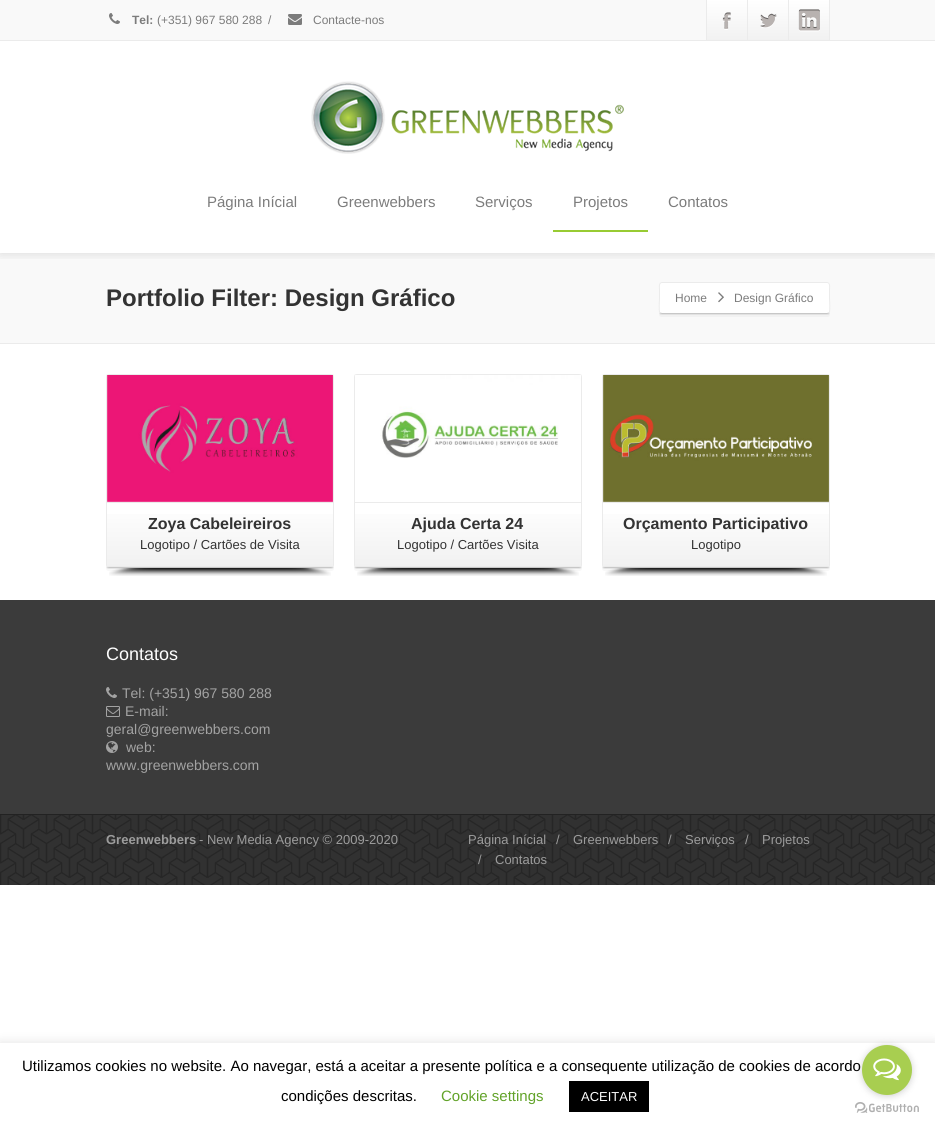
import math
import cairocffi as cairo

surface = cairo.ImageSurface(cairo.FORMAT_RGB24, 935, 1129)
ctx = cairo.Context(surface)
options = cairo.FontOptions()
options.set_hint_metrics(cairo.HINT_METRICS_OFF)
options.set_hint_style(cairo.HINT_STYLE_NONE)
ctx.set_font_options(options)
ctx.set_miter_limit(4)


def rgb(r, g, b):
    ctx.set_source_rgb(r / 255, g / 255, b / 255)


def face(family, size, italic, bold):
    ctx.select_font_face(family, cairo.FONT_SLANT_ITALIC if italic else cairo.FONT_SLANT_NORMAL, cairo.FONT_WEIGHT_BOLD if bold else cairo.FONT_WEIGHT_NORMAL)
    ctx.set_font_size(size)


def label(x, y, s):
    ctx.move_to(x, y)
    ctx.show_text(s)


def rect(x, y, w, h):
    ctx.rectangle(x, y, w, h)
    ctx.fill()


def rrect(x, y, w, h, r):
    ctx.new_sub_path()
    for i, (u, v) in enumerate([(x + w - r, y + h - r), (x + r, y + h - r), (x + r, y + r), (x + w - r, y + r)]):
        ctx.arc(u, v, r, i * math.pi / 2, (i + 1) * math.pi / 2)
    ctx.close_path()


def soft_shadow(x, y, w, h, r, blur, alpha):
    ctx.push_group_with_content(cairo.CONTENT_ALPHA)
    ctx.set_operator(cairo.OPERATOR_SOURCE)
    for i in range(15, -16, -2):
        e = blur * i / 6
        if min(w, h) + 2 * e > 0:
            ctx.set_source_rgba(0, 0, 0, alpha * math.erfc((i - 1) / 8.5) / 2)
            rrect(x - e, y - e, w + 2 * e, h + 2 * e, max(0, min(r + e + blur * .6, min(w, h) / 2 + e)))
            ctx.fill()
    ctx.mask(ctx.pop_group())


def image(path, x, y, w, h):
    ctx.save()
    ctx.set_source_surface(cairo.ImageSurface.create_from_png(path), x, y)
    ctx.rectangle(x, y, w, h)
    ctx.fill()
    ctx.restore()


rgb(255, 255, 255)
ctx.paint()
rgb(249, 249, 249)
rect(0, 253, 935, 90)
ctx.save()
ctx.rectangle(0, 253, 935, 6)
ctx.clip()
rgb(0, 0, 0)
soft_shadow(0, 43, 935, 212, 0, 5, 0.1)
ctx.restore()
rect(0, 0, 935, 40)
rgb(235, 235, 235)
rect(0, 40, 935, 1)
image('image0.png', 109, 13, 11, 11)
face('Liberation Sans', 12, 0, 1)
rgb(124, 124, 124)
label(132, 24, 'Tel:')
face('Liberation Sans', 12, 0, 0)
label(157, 24, '(+351) 967 580 288')
label(268, 24, '/')
image('image1.png', 288, 14, 14, 11)
label(313, 24, 'Contacte-nos')
gradient = cairo.LinearGradient(727, 0, 727, 40)
gradient.add_color_stop_rgba(0, 1, 1, 1, 1)
gradient.add_color_stop_rgba(1, 0.945, 0.945, 0.945, 1)
ctx.set_source(gradient)
rect(707, 0, 40, 40)
rgb(235, 235, 235)
rect(706, 0, 1, 40)
image('image2.png', 722, 12, 9, 18)
gradient = cairo.LinearGradient(768, 0, 768, 40)
gradient.add_color_stop_rgba(0, 1, 1, 1, 1)
gradient.add_color_stop_rgba(1, 0.945, 0.945, 0.945, 1)
ctx.set_source(gradient)
rect(748, 0, 40, 40)
rgb(235, 235, 235)
rect(747, 0, 1, 40)
image('image3.png', 760, 13, 17, 15)
gradient = cairo.LinearGradient(809, 0, 809, 40)
gradient.add_color_stop_rgba(0, 1, 1, 1, 1)
gradient.add_color_stop_rgba(1, 0.945, 0.945, 0.945, 1)
ctx.set_source(gradient)
rect(789, 0, 40, 40)
rgb(235, 235, 235)
rect(829, 0, 1, 40)
rect(788, 0, 1, 40)
image('image4.png', 798, 9, 22, 23)
image('image5.png', 311, 81, 313, 73)
face('Liberation Sans', 15, 0, 0)
rgb(124, 124, 124)
label(207, 207, 'Página Inícial')
label(337, 207, 'Greenwebbers')
label(475, 207, 'Serviços')
rgb(152, 203, 51)
rect(553, 230, 95, 2)
rgb(124, 124, 124)
label(573, 207, 'Projetos')
label(668, 207, 'Contatos')
rgb(235, 235, 235)
rect(0, 343, 935, 1)
face('Liberation Sans', 24, 0, 1)
rgb(51, 51, 51)
label(106, 306, 'Portfolio Filter: Design Gráfico')
rgb(232, 232, 232)
ctx.new_path()
ctx.move_to(659, 311)
ctx.line_to(659, 312)
ctx.curve_to(659, 314, 660, 315, 662, 315)
ctx.line_to(827, 315)
ctx.curve_to(829, 315, 830, 314, 830, 312)
ctx.line_to(830, 311)
ctx.curve_to(830, 313, 829, 314, 827, 314)
ctx.line_to(662, 314)
ctx.curve_to(660, 314, 659, 313, 659, 311)
ctx.close_path()
ctx.fill()
ctx.set_source_rgba(0, 0, 0, 0.03)
ctx.new_path()
ctx.move_to(659, 311)
ctx.line_to(659, 314)
ctx.curve_to(659, 316, 660, 317, 662, 317)
ctx.line_to(827, 317)
ctx.curve_to(829, 317, 830, 316, 830, 314)
ctx.line_to(830, 311)
ctx.curve_to(830, 313, 829, 314, 827, 314)
ctx.line_to(662, 314)
ctx.curve_to(660, 314, 659, 313, 659, 311)
ctx.close_path()
ctx.fill()
rgb(255, 255, 255)
rrect(659, 282, 171, 32, 3)
ctx.fill()
ctx.new_path()
ctx.move_to(829, 313)
ctx.line_to(827, 313.5)
ctx.line_to(662, 313.5)
ctx.line_to(660, 313)
ctx.set_source_rgba(0, 0, 0, 0.22)
ctx.set_line_width(1)
ctx.stroke()
ctx.new_path()
ctx.move_to(660, 313)
ctx.curve_to(658.5, 311, 659.5, 300.5, 659.5, 298)
ctx.line_to(659.5, 289.5)
ctx.curve_to(659.5, 287.5, 658.5, 282.5, 662, 282.5)
ctx.line_to(827, 282.5)
ctx.curve_to(830.5, 282.5, 829.5, 287.5, 829.5, 289.5)
ctx.line_to(829.5, 298)
ctx.curve_to(829.5, 300.5, 830.5, 311, 829, 313)
rgb(235, 235, 235)
ctx.stroke()
face('Liberation Sans', 12, 0, 0)
rgb(124, 124, 124)
label(675, 302, 'Home')
image('image6.png', 718, 292, 6, 11)
label(734, 302, 'Design Gráfico')
rgb(237, 237, 237)
ctx.new_path()
ctx.move_to(106, 565)
ctx.line_to(106, 566)
ctx.curve_to(106, 568, 107, 569, 109, 569)
ctx.line_to(331, 569)
ctx.curve_to(333, 569, 334, 568, 334, 566)
ctx.line_to(334, 565)
ctx.curve_to(334, 567, 333, 568, 331, 568)
ctx.line_to(109, 568)
ctx.curve_to(107, 568, 106, 567, 106, 565)
ctx.close_path()
ctx.fill()
ctx.set_source_rgba(0, 0, 0, 0.03)
ctx.new_path()
ctx.move_to(106, 565)
ctx.line_to(106, 568)
ctx.curve_to(106, 570, 107, 571, 109, 571)
ctx.line_to(331, 571)
ctx.curve_to(333, 571, 334, 570, 334, 568)
ctx.line_to(334, 565)
ctx.curve_to(334, 567, 333, 568, 331, 568)
ctx.line_to(109, 568)
ctx.curve_to(107, 568, 106, 567, 106, 565)
ctx.close_path()
ctx.fill()
rgb(255, 255, 255)
rrect(106, 374, 228, 194, 3)
ctx.fill()
ctx.new_path()
ctx.move_to(333, 567)
ctx.line_to(331, 567.5)
ctx.line_to(109, 567.5)
ctx.line_to(107, 567)
ctx.set_source_rgba(0, 0, 0, 0.22)
ctx.stroke()
ctx.new_path()
ctx.move_to(107, 567)
ctx.line_to(106.5, 565)
ctx.line_to(106.5, 377)
ctx.line_to(107, 375)
ctx.line_to(109, 374.5)
ctx.line_to(331, 374.5)
ctx.line_to(333, 375)
ctx.line_to(333.5, 377)
ctx.line_to(333.5, 565)
ctx.line_to(333, 567)
rgb(235, 235, 235)
ctx.stroke()
rect(107, 502, 226, 1)
image('image7.png', 107, 375, 226, 127)
gradient = cairo.LinearGradient(220, 503, 220, 566)
gradient.add_color_stop_rgba(0, 1, 1, 1, 1)
gradient.add_color_stop_rgba(1, 0.945, 0.945, 0.945, 1)
ctx.set_source(gradient)
rect(107, 514, 226, 52)
rgb(235, 235, 235)
rect(107, 566, 226, 1)
face('Liberation Sans', 16, 0, 1)
rgb(51, 51, 51)
label(148, 529, 'Zoya Cabeleireiros')
face('Liberation Sans', 13, 0, 0)
label(140, 549, 'Logotipo / Cartões de Visita')
image('image8.png', 109, 568, 222, 8)
rgb(237, 237, 237)
ctx.new_path()
ctx.move_to(354, 565)
ctx.line_to(354, 566)
ctx.curve_to(354, 568, 355, 569, 357, 569)
ctx.line_to(579, 569)
ctx.curve_to(581, 569, 582, 568, 582, 566)
ctx.line_to(582, 565)
ctx.curve_to(582, 567, 581, 568, 579, 568)
ctx.line_to(357, 568)
ctx.curve_to(355, 568, 354, 567, 354, 565)
ctx.close_path()
ctx.fill()
ctx.set_source_rgba(0, 0, 0, 0.03)
ctx.new_path()
ctx.move_to(354, 565)
ctx.line_to(354, 568)
ctx.curve_to(354, 570, 355, 571, 357, 571)
ctx.line_to(579, 571)
ctx.curve_to(581, 571, 582, 570, 582, 568)
ctx.line_to(582, 565)
ctx.curve_to(582, 567, 581, 568, 579, 568)
ctx.line_to(357, 568)
ctx.curve_to(355, 568, 354, 567, 354, 565)
ctx.close_path()
ctx.fill()
rgb(255, 255, 255)
rrect(354, 374, 228, 194, 3)
ctx.fill()
ctx.new_path()
ctx.move_to(581, 567)
ctx.line_to(579, 567.5)
ctx.line_to(357, 567.5)
ctx.line_to(355, 567)
ctx.set_source_rgba(0, 0, 0, 0.22)
ctx.stroke()
ctx.new_path()
ctx.move_to(355, 567)
ctx.line_to(354.5, 565)
ctx.line_to(354.5, 377)
ctx.line_to(355, 375)
ctx.line_to(357, 374.5)
ctx.line_to(579, 374.5)
ctx.line_to(581, 375)
ctx.line_to(581.5, 377)
ctx.line_to(581.5, 565)
ctx.line_to(581, 567)
rgb(235, 235, 235)
ctx.stroke()
rect(355, 502, 226, 1)
image('image9.png', 355, 375, 226, 83)
gradient = cairo.LinearGradient(468, 503, 468, 566)
gradient.add_color_stop_rgba(0, 1, 1, 1, 1)
gradient.add_color_stop_rgba(1, 0.945, 0.945, 0.945, 1)
ctx.set_source(gradient)
rect(355, 514, 226, 52)
rgb(235, 235, 235)
rect(355, 566, 226, 1)
face('Liberation Sans', 16, 0, 1)
rgb(51, 51, 51)
label(411, 529, 'Ajuda Certa 24')
face('Liberation Sans', 13, 0, 0)
label(397, 549, 'Logotipo / Cartões Visita')
image('image10.png', 357, 568, 222, 8)
rgb(237, 237, 237)
ctx.new_path()
ctx.move_to(602, 565)
ctx.line_to(602, 566)
ctx.curve_to(602, 568, 603, 569, 605, 569)
ctx.line_to(827, 569)
ctx.curve_to(829, 569, 830, 568, 830, 566)
ctx.line_to(830, 565)
ctx.curve_to(830, 567, 829, 568, 827, 568)
ctx.line_to(605, 568)
ctx.curve_to(603, 568, 602, 567, 602, 565)
ctx.close_path()
ctx.fill()
ctx.set_source_rgba(0, 0, 0, 0.03)
ctx.new_path()
ctx.move_to(602, 565)
ctx.line_to(602, 568)
ctx.curve_to(602, 570, 603, 571, 605, 571)
ctx.line_to(827, 571)
ctx.curve_to(829, 571, 830, 570, 830, 568)
ctx.line_to(830, 565)
ctx.curve_to(830, 567, 829, 568, 827, 568)
ctx.line_to(605, 568)
ctx.curve_to(603, 568, 602, 567, 602, 565)
ctx.close_path()
ctx.fill()
rgb(255, 255, 255)
rrect(602, 374, 228, 194, 3)
ctx.fill()
ctx.new_path()
ctx.move_to(829, 567)
ctx.line_to(827, 567.5)
ctx.line_to(605, 567.5)
ctx.line_to(603, 567)
ctx.set_source_rgba(0, 0, 0, 0.22)
ctx.stroke()
ctx.new_path()
ctx.move_to(603, 567)
ctx.line_to(602.5, 565)
ctx.line_to(602.5, 377)
ctx.line_to(603, 375)
ctx.line_to(605, 374.5)
ctx.line_to(827, 374.5)
ctx.line_to(829, 375)
ctx.line_to(829.5, 377)
ctx.line_to(829.5, 565)
ctx.line_to(829, 567)
rgb(235, 235, 235)
ctx.stroke()
rect(603, 502, 226, 1)
image('image11.png', 603, 375, 226, 127)
gradient = cairo.LinearGradient(716, 503, 716, 566)
gradient.add_color_stop_rgba(0, 1, 1, 1, 1)
gradient.add_color_stop_rgba(1, 0.945, 0.945, 0.945, 1)
ctx.set_source(gradient)
rect(603, 514, 226, 52)
rgb(235, 235, 235)
rect(603, 566, 226, 1)
face('Liberation Sans', 16, 0, 1)
rgb(51, 51, 51)
label(623, 529, 'Orçamento Participativo')
face('Liberation Sans', 13, 0, 0)
label(691, 549, 'Logotipo')
image('image8.png', 605, 568, 222, 8)
rgb(59, 59, 59)
rect(0, 600, 935, 214)
face('Liberation Sans', 18, 0, 0)
rgb(253, 253, 253)
label(106, 660, 'Contatos')
image('image12.png', 106, 687, 11, 11)
face('Liberation Sans', 14, 0, 0)
rgb(163, 163, 163)
label(122, 698, 'Tel: (+351) 967 580 288')
image('image13.png', 106, 706, 14, 11)
label(125, 716, 'E-mail:')
label(106, 734, 'geral@greenwebbers.com')
image('image14.png', 106, 741, 12, 12)
label(126, 752, 'web:')
label(106, 770, 'www.greenwebbers.com')
image('image15.png', 0, 815, 935, 70)
rgb(34, 34, 34)
rect(0, 814, 935, 1)
face('Liberation Sans', 13, 0, 1)
rgb(156, 156, 156)
label(106, 844, 'Greenwebbers')
face('Liberation Sans', 13, 0, 0)
label(199, 844, '- New Media Agency © 2009-2020')
label(468, 844, 'Página Inícial')
label(556, 844, '/')
label(573, 844, 'Greenwebbers')
label(668, 844, '/')
label(685, 844, 'Serviços')
label(745, 844, '/')
label(762, 844, 'Projetos')
label(478, 864, '/')
label(495, 864, 'Contatos')
rgb(172, 171, 171)
soft_shadow(0, 1042, 935, 86, 0, 5, 0.3)
rgb(255, 255, 255)
rect(0, 1043, 935, 86)
face('Liberation Sans', 15, 0, 0)
rgb(0, 0, 0)
label(22, 1071, 'Utilizamos cookies no website. Ao navegar, está a aceitar a presente política e a consequente utilização de cookies de acordo')
label(281, 1101, 'condições descritas.')
rgb(98, 163, 41)
label(441, 1101, 'Cookie settings')
rgb(0, 0, 0)
rect(569, 1081, 80, 31)
face('Liberation Sans', 13, 0, 0)
rgb(253, 253, 253)
label(581, 1101, 'ACEITAR')
image('image17.png', 855, 1102, 64, 11)
rgb(136, 136, 136)
soft_shadow(862, 1046, 50, 50, 25, 3.5, 0.4)
rgb(168, 206, 80)
ctx.arc(887, 1070, 25, 0, 2 * math.pi)
ctx.fill()
image('image16.png', 873, 1058, 28, 23)
surface.write_to_png('render.png')
